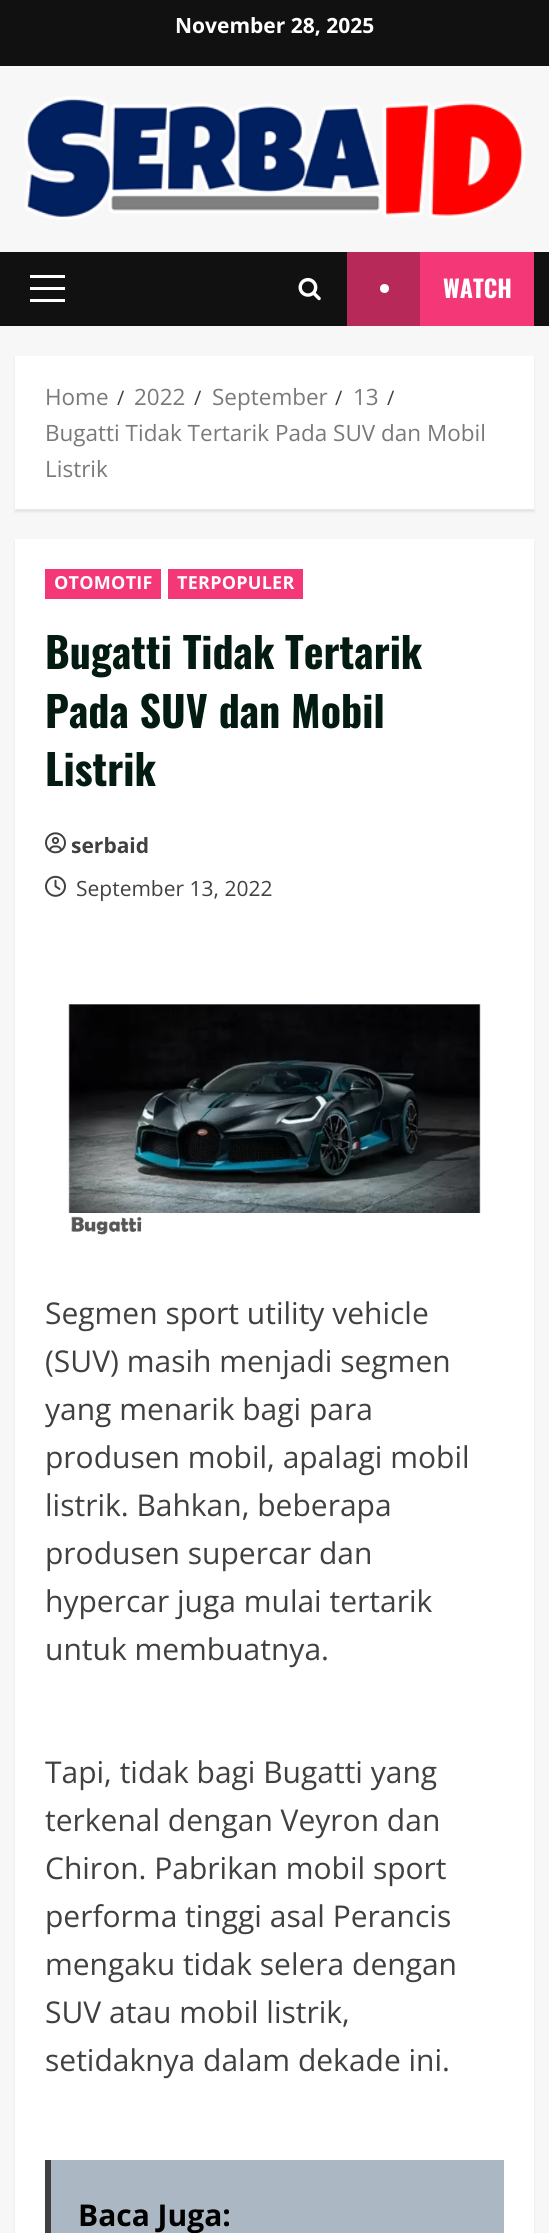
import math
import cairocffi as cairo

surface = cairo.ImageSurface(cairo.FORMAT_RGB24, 549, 2233)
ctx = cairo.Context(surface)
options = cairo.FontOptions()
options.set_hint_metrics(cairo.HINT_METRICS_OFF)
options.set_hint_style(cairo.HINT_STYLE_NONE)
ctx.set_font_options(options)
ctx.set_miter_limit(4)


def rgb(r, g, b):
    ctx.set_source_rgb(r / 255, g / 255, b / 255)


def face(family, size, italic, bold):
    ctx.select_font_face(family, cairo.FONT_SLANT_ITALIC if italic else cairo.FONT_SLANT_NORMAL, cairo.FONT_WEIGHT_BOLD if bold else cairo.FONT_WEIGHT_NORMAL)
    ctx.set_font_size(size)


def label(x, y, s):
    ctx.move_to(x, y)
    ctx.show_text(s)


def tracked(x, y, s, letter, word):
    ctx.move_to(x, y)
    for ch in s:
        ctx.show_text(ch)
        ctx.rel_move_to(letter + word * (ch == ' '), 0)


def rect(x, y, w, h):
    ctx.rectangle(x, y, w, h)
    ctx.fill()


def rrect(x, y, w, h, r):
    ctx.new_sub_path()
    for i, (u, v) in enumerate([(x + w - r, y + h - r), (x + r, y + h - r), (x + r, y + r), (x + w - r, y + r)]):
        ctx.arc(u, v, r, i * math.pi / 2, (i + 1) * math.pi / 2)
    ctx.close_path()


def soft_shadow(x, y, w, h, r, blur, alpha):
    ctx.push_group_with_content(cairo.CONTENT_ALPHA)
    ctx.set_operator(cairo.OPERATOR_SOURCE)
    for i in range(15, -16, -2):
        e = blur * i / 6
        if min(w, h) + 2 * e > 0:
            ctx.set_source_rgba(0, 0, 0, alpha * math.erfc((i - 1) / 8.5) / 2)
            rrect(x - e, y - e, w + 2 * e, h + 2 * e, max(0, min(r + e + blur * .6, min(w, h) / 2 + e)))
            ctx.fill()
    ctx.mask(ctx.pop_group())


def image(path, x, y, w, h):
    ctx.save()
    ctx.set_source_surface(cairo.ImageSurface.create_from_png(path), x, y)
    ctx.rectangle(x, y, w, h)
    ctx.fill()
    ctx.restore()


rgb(247, 247, 247)
ctx.paint()
rgb(17, 17, 17)
rect(0, 0, 549, 66)
face('Open Sans', 21, 0, 1)
rgb(255, 255, 255)
label(175, 33, 'November 28, 2025')
image('image0.png', 24, 96, 501, 124)
rgb(17, 17, 17)
rect(0, 252, 549, 74)
rgb(255, 255, 255)
rect(30, 287, 35, 3)
rect(30, 275, 35, 3)
rect(30, 299, 35, 3)
image('image1.png', 298, 277, 23, 24)
rgb(244, 55, 118)
rect(420, 252, 114, 74)
rgb(183, 41, 89)
rect(347, 252, 73, 74)
rgb(255, 255, 255)
ctx.arc(384.5, 288.5, 4.5, 0, 2 * math.pi)
ctx.fill()
face('Oswald', 24, 0, 1)
label(443, 298, 'WATCH')
rgb(0, 0, 0)
soft_shadow(15, 359, 519, 153, 0, 1.5, 0.08)
rgb(255, 255, 255)
rect(15, 356, 519, 153)
face('Open Sans', 22.5, 0, 0)
rgb(121, 121, 121)
label(45, 405, 'Home')
face('Open Sans', 20, 0, 0)
rgb(64, 64, 64)
label(117, 405, '/')
face('Open Sans', 22.5, 0, 0)
rgb(121, 121, 121)
label(134, 405, '2022')
face('Open Sans', 20, 0, 0)
rgb(64, 64, 64)
label(194, 405, '/')
face('Open Sans', 22.5, 0, 0)
rgb(121, 121, 121)
label(212, 405, 'September')
face('Open Sans', 20, 0, 0)
rgb(64, 64, 64)
label(335, 405, '/')
face('Open Sans', 22.5, 0, 0)
rgb(121, 121, 121)
label(353, 405, '13')
face('Open Sans', 20, 0, 0)
rgb(64, 64, 64)
label(387, 405, '/')
face('Open Sans', 22.5, 0, 0)
rgb(121, 121, 121)
label(45, 441, 'Bugatti Tidak Tertarik Pada SUV dan Mobil')
label(45, 477, 'Listrik')
rgb(0, 0, 0)
soft_shadow(15, 542, 519, 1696, 0, 1.5, 0.08)
rgb(255, 255, 255)
rect(15, 539, 519, 1694)
rgb(244, 55, 118)
rect(45, 569, 116, 30)
face('Open Sans', 18, 0, 1)
rgb(255, 255, 255)
tracked(54, 589, 'OTOMOTIF', 0.25, 0)
rgb(244, 55, 118)
rect(168, 569, 135, 30)
rgb(255, 255, 255)
tracked(177, 589, 'TERPOPULER', 0.25, 0)
face('Oswald', 42, 0, 1)
rgb(3, 27, 17)
label(45, 669, 'Bugatti Tidak Tertarik')
label(45, 728, 'Pada SUV dan Mobil')
label(45, 786, 'Listrik')
image('image2.png', 45, 832, 21, 22)
face('Open Sans', 21, 0, 1)
rgb(64, 64, 64)
label(71, 853, 'serbaid')
image('image3.png', 45, 875, 21, 22)
face('Open Sans', 21, 0, 0)
label(76, 896, 'September 13, 2022')
image('image4.png', 68, 1004, 413, 231)
face('Open Sans', 30, 0, 0)
label(45, 1324, 'Segmen sport utility vehicle')
label(45, 1372, '(SUV) masih menjadi segmen')
label(45, 1420, 'yang menarik bagi para')
label(45, 1468, 'produsen mobil, apalagi mobil')
label(45, 1516, 'listrik. Bahkan, beberapa')
label(45, 1564, 'produsen supercar dan')
label(45, 1612, 'hypercar juga mulai tertarik')
label(45, 1660, 'untuk membuatnya.')
label(45, 1783, 'Tapi, tidak bagi Bugatti yang')
label(45, 1831, 'terkenal dengan Veyron dan')
label(45, 1879, 'Chiron. Pabrikan mobil sport')
label(45, 1927, 'performa tinggi asal Perancis')
label(45, 1975, 'mengaku tidak selera dengan')
label(45, 2023, 'SUV atau mobil listrik,')
label(45, 2071, 'setidaknya dalam dekade ini.')
rgb(171, 184, 195)
rect(51, 2160, 453, 73)
rgb(64, 64, 64)
rect(45, 2160, 6, 73)
face('Open Sans', 30, 0, 1)
rgb(0, 0, 0)
label(78, 2226, 'Baca Juga:')
surface.write_to_png('render.png')
